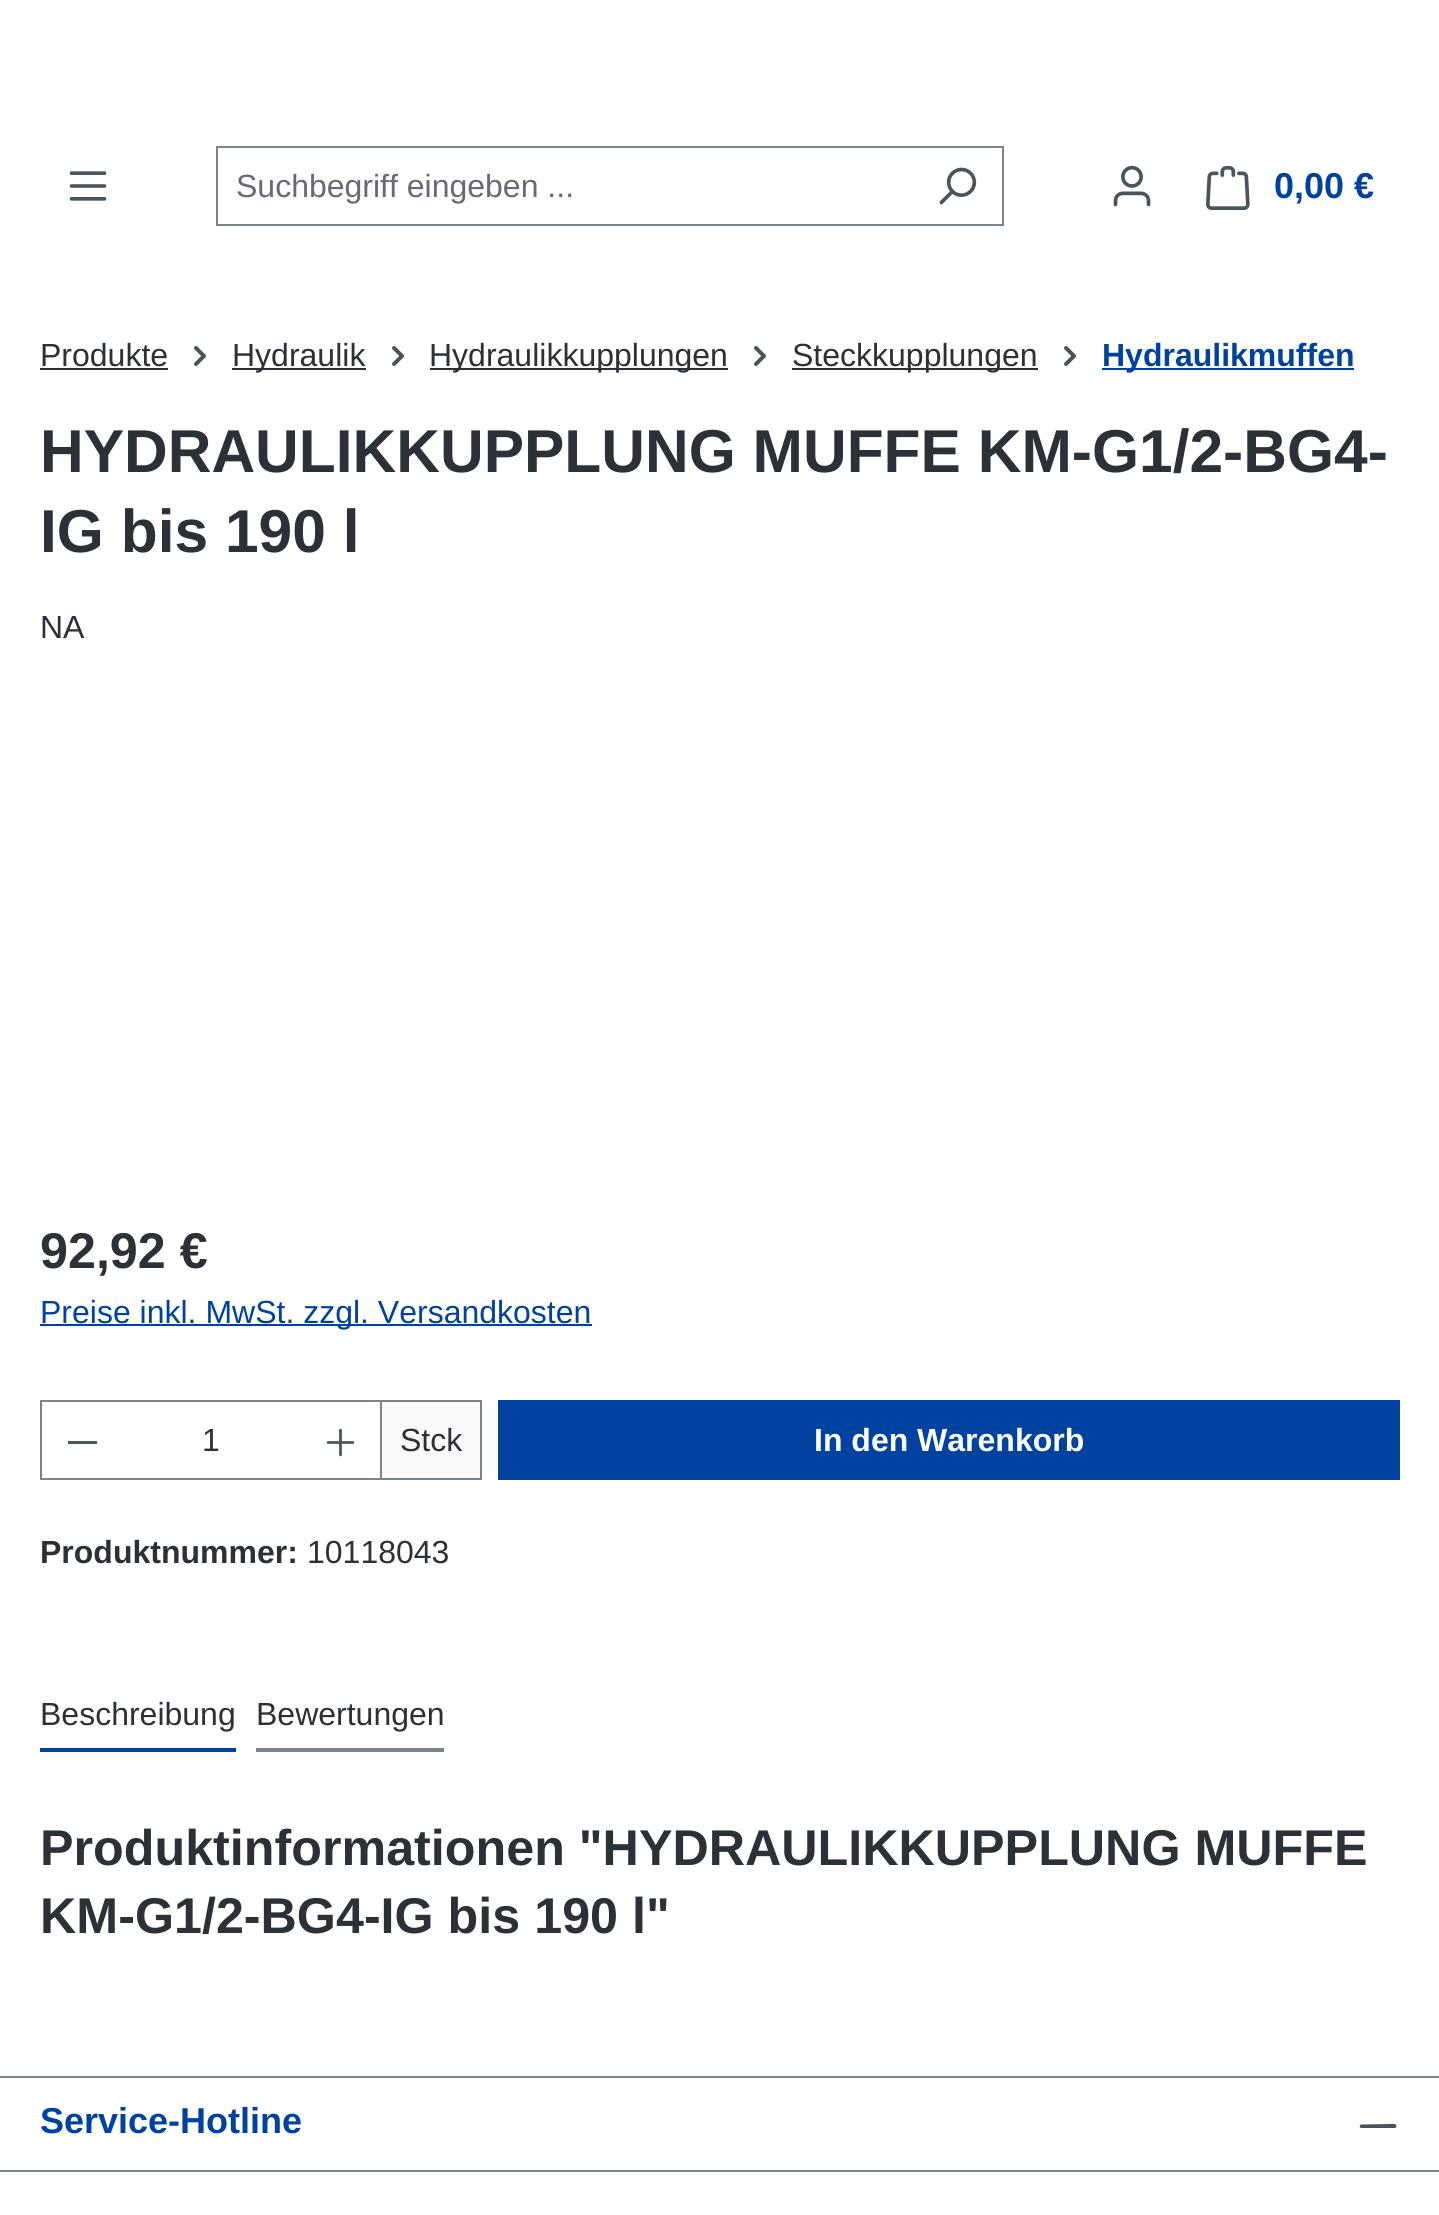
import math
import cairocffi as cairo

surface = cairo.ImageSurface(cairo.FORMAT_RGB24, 1439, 2215)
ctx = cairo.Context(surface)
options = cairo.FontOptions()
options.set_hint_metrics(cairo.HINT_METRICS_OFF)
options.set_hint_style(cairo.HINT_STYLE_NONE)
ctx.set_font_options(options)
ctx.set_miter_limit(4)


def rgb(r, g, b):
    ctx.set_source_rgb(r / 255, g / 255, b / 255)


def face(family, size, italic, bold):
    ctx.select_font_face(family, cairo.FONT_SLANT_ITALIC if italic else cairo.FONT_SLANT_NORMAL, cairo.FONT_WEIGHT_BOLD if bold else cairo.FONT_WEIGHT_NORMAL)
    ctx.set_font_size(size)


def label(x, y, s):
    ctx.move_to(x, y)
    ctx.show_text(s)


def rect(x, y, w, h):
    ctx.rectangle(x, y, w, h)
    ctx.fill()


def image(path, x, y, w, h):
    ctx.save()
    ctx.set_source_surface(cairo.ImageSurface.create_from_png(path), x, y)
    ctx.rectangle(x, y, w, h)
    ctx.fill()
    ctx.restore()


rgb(255, 255, 255)
ctx.paint()
image('image0.png', 69, 171, 38, 30)
rgb(121, 132, 144)
rect(216, 146, 788, 2)
rect(216, 224, 696, 2)
rect(216, 146, 2, 80)
face('Liberation Sans', 32, 0, 0)
rgb(102, 105, 119)
label(236, 197, 'Suchbegriff eingeben ...')
rgb(121, 132, 144)
rect(1002, 146, 2, 80)
rect(910, 224, 94, 2)
image('image1.png', 939, 167, 38, 38)
image('image2.png', 1113, 165, 38, 42)
image('image3.png', 1206, 166, 44, 44)
face('Liberation Sans', 36, 0, 1)
rgb(0, 66, 160)
label(1274, 198, '0,00 €')
face('Liberation Sans', 32, 0, 0)
rgb(43, 49, 54)
label(40, 366, 'Produkte')
rect(40, 368, 128, 2)
image('image4.png', 194, 346, 12, 20)
rect(232, 368, 134, 2)
label(232, 366, 'Hydraulik')
image('image4.png', 392, 346, 12, 20)
rect(430, 368, 298, 2)
label(429, 366, 'Hydraulikkupplungen')
image('image4.png', 754, 346, 12, 20)
rect(792, 368, 246, 2)
label(792, 366, 'Steckkupplungen')
image('image4.png', 1064, 346, 12, 20)
rgb(0, 66, 160)
rect(1102, 368, 252, 2)
face('Liberation Sans', 32, 0, 1)
label(1102, 366, 'Hydraulikmuffen')
face('Liberation Sans', 60.5, 0, 1)
rgb(43, 49, 54)
label(40, 472, 'HYDRAULIKKUPPLUNG MUFFE KM-G1/2-BG4-')
label(40, 552, 'IG bis 190 l')
face('Liberation Sans', 32, 0, 0)
label(40, 638, 'NA')
face('Liberation Sans', 50.25, 0, 1)
label(40, 1268, '92,92 €')
rgb(0, 66, 160)
rect(40, 1324, 552, 2)
face('Liberation Sans', 32, 0, 0)
label(40, 1323, 'Preise inkl. MwSt. zzgl. Versandkosten')
rgb(249, 249, 249)
ctx.rectangle(381, 1401, 100, 78)
ctx.fill_preserve()
rgb(121, 132, 144)
ctx.stroke()
rect(40, 1400, 342, 2)
rect(40, 1478, 342, 2)
rect(40, 1400, 2, 80)
rgb(74, 84, 91)
rect(68, 1441, 29, 3)
rgb(43, 49, 54)
label(202, 1451, '1')
image('image5.png', 326, 1428, 29, 29)
label(400, 1451, 'Stck')
rgb(0, 66, 160)
rect(498, 1400, 902, 80)
face('Liberation Sans', 32, 0, 1)
rgb(255, 255, 255)
label(814, 1451, 'In den Warenkorb')
rgb(43, 49, 54)
label(40, 1563, 'Produktnummer:')
face('Liberation Sans', 32, 0, 0)
label(307, 1563, '10118043')
rgb(0, 66, 160)
rect(40, 1748, 196, 4)
rgb(43, 49, 54)
label(40, 1725, 'Beschreibung')
rgb(121, 132, 144)
rect(256, 1748, 188, 4)
rgb(43, 49, 54)
label(256, 1725, 'Bewertungen')
face('Liberation Sans', 50.25, 0, 1)
label(40, 1865, 'Produktinformationen "HYDRAULIKKUPPLUNG MUFFE')
label(40, 1933, 'KM-G1/2-BG4-IG bis 190 l"')
rgb(121, 132, 144)
rect(0, 2076, 1439, 2)
rect(0, 2170, 1439, 2)
face('Liberation Sans', 36, 0, 1)
rgb(0, 66, 160)
label(40, 2133, 'Service-Hotline')
rgb(74, 84, 91)
ctx.set_fill_rule(cairo.FILL_RULE_EVEN_ODD)
ctx.new_path()
ctx.move_to(1361.5, 2128)
ctx.line_to(1395, 2128)
ctx.line_to(1396, 2127.5)
ctx.curve_to(1396, 2127, 1396.5, 2126, 1396.5, 2125.5)
ctx.curve_to(1395.5, 2123, 1389.5, 2124, 1389, 2124)
ctx.line_to(1361, 2124.5)
ctx.curve_to(1359.5, 2125, 1359.5, 2126.5, 1360, 2127.5)
ctx.close_path()
ctx.fill()
surface.write_to_png('render.png')
